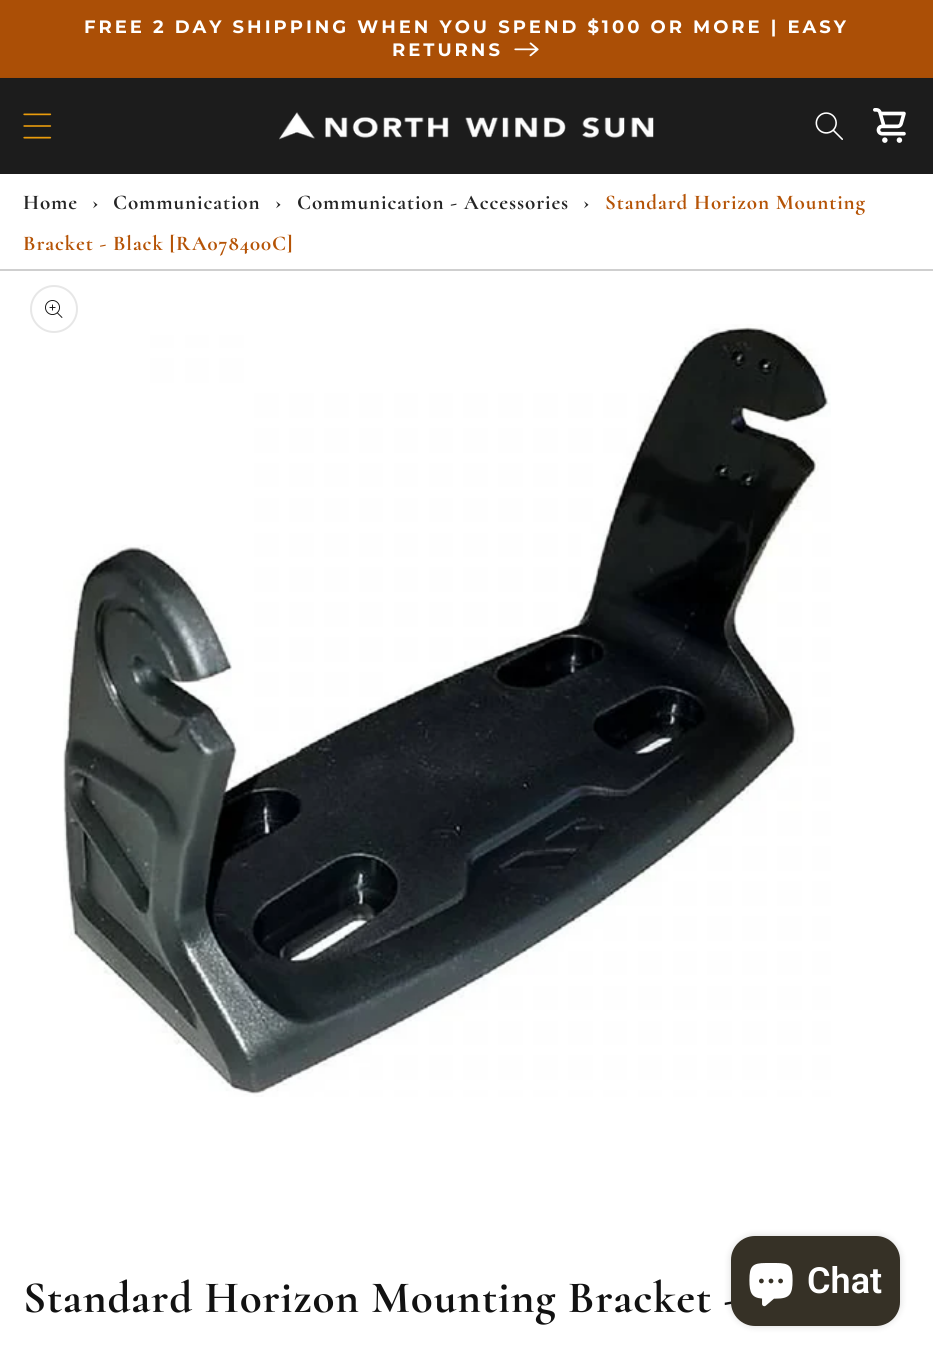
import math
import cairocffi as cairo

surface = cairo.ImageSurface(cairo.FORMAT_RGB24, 933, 1357)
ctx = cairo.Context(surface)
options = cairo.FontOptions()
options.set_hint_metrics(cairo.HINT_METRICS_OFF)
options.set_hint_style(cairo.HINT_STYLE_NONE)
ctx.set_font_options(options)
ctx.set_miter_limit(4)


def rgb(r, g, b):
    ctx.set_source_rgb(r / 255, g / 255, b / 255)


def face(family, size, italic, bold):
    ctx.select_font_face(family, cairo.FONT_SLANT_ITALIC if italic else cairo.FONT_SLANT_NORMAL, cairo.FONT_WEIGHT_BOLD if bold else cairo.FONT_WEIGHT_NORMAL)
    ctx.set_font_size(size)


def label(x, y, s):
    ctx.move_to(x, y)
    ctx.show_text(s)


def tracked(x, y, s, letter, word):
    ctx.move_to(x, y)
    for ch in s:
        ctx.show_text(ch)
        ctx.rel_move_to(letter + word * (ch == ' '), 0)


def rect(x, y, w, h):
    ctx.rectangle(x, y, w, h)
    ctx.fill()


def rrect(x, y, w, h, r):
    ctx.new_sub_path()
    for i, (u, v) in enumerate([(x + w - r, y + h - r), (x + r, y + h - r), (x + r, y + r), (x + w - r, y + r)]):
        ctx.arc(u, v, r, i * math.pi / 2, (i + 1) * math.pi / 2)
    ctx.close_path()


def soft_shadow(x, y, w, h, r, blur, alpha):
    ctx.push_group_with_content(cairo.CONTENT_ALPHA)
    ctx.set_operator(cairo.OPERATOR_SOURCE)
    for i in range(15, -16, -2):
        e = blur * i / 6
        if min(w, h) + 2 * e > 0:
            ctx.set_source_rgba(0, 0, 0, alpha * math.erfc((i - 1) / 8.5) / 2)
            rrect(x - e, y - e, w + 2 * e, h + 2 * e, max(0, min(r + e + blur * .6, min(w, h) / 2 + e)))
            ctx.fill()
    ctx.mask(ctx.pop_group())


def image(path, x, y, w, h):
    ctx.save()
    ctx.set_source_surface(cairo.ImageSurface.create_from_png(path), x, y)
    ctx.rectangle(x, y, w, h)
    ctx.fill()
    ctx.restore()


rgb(255, 255, 255)
ctx.paint()
rgb(168, 78, 6)
rect(0, 77, 933, 1)
rgb(171, 79, 6)
rect(0, 0, 933, 77)
face('Montserrat', 18, 0, 1)
rgb(255, 255, 255)
tracked(84, 33, 'FREE 2 DAY SHIPPING WHEN YOU SPEND $100 OR MORE | EASY', 3, 0)
tracked(392, 56, 'RETURNS', 3, 0)
image('image0.png', 514, 42, 25, 15)
rgb(28, 28, 28)
rect(0, 79, 933, 95)
rgb(27, 27, 27)
rect(0, 78, 933, 1)
image('image1.png', 23, 113, 29, 26)
image('image2.png', 279, 112, 375, 28)
image('image3.png', 815, 112, 28, 28)
image('image4.png', 873, 108, 33, 35)
face('Cormorant Light', 21, 0, 0)
rgb(37, 37, 37)
tracked(23, 209, 'Home', 0.9, 0)
tracked(92, 209, '›', 0.9, 0)
tracked(113, 209, 'Communication', 0.9, 0)
tracked(275, 209, '›', 0.9, 0)
tracked(297, 209, 'Communication - Accessories', 0.9, 0)
tracked(583, 209, '›', 0.9, 0)
rgb(181, 83, 5)
tracked(605, 209, 'Standard Horizon Mounting', 0.9, 0)
tracked(23, 250, 'Bracket - Black [RA078400C]', 0.9, 0)
rgb(207, 207, 207)
rect(0, 269, 933, 2)
image('image6.png', 63, 324, 768, 773)
ctx.arc(54, 309, 23, 0, 2 * math.pi)
rgb(231, 231, 231)
ctx.stroke()
image('image5.png', 45, 300, 18, 18)
face('Cormorant Light', 45, 0, 0)
rgb(18, 18, 18)
tracked(23, 1312, 'Standard Horizon Mounting Bracket -', 0.9, 0)
rgb(0, 0, 0)
soft_shadow(731, 1236, 169, 90, 24, 4, 0.15)
rgb(54, 49, 38)
rrect(731, 1236, 169, 90, 24)
ctx.fill()
image('image7.png', 749, 1263, 44, 44)
face('Roboto SemiBold', 36, 0, 0)
rgb(255, 255, 255)
label(807, 1293, 'Chat')
surface.write_to_png('render.png')
